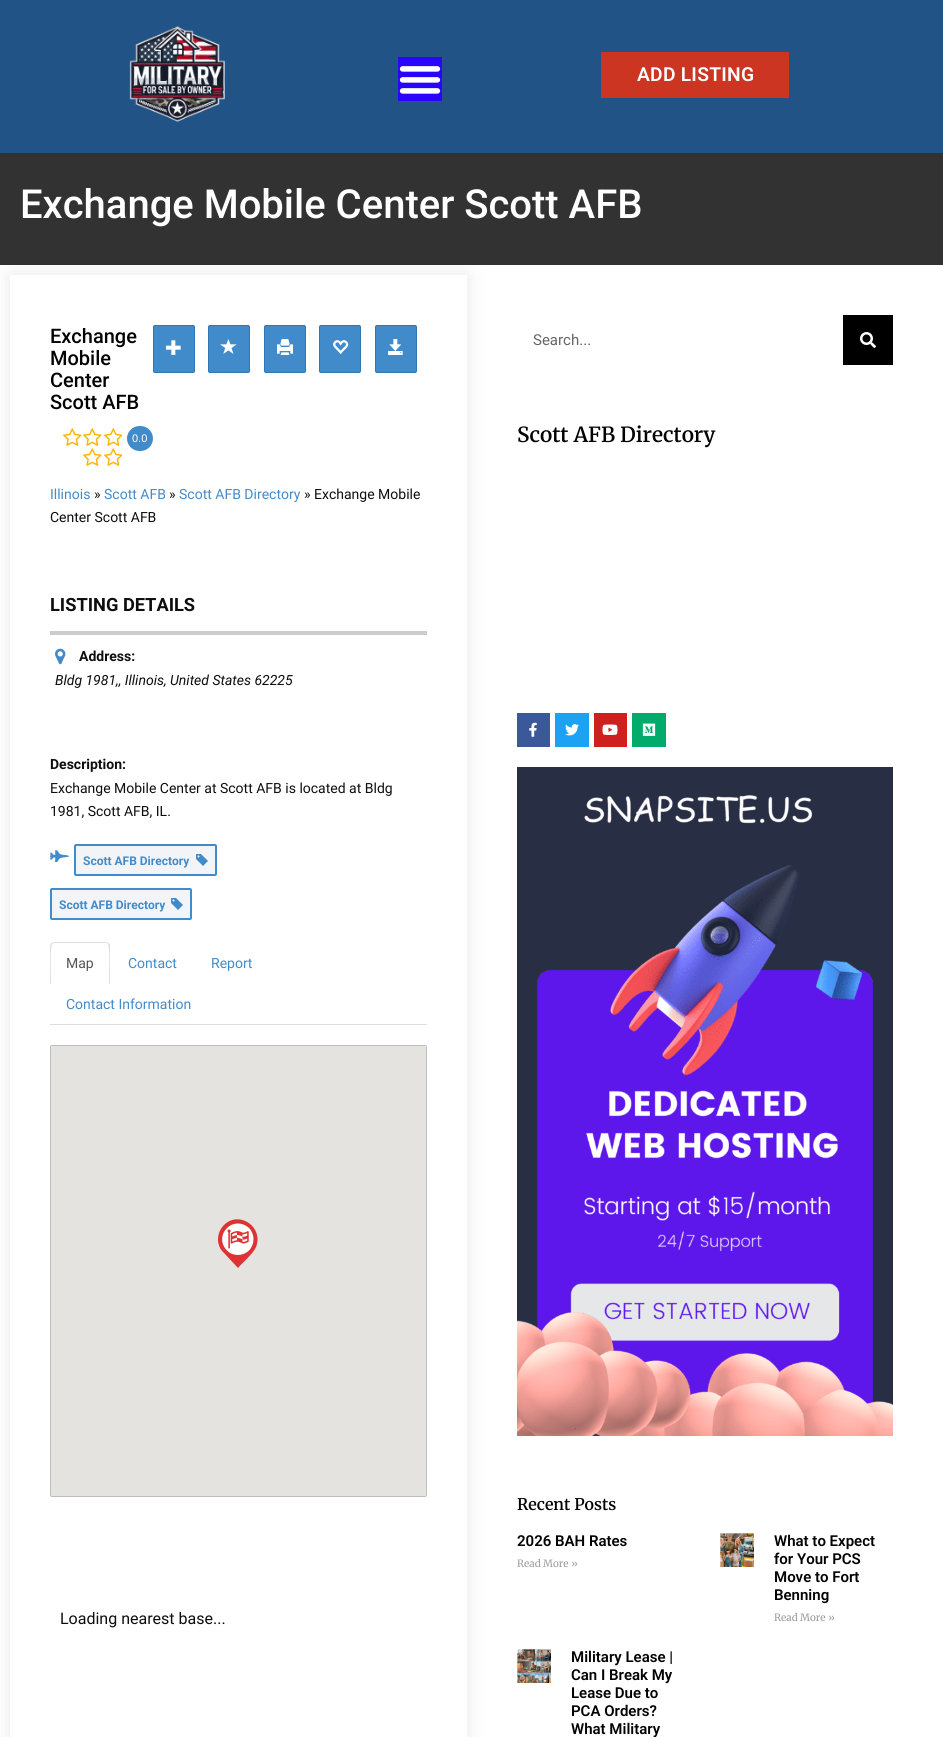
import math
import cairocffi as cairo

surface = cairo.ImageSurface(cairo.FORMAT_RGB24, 943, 1737)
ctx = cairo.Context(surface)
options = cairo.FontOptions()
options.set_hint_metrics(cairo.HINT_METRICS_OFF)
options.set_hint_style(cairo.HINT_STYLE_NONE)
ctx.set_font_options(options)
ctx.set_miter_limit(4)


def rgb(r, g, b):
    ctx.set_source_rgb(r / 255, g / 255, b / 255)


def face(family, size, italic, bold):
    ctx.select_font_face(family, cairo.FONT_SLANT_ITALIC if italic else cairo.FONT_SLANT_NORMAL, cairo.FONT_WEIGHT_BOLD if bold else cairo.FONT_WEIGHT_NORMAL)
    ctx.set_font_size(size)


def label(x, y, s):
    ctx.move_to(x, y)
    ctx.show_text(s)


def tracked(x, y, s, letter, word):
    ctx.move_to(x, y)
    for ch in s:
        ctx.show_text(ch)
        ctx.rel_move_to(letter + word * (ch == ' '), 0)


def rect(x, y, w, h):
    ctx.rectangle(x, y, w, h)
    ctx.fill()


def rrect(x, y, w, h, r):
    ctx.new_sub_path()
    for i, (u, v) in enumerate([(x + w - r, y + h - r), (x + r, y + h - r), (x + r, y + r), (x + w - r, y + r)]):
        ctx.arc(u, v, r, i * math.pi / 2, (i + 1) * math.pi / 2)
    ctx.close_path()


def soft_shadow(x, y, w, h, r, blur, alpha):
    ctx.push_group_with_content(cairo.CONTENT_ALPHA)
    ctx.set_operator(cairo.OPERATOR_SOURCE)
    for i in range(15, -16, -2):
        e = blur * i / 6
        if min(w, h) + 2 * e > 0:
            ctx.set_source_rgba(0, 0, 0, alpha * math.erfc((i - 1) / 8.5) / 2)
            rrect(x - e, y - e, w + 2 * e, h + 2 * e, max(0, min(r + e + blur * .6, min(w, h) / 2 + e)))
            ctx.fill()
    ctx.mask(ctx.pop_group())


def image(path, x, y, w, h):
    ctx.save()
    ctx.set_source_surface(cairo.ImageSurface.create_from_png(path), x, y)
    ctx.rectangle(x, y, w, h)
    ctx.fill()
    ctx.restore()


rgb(255, 255, 255)
ctx.paint()
rgb(33, 83, 135)
rect(0, 0, 943, 153)
image('image0.png', 129, 26, 96, 96)
rgb(40, 6, 251)
rect(398, 57, 44, 44)
image('image1.png', 399, 66, 42, 28)
rgb(203, 53, 34)
rect(601, 52, 188, 46)
face('Roboto SemiBold', 19.25, 0, 0)
rgb(255, 255, 255)
tracked(637, 81, 'ADD LISTING', 0.25, 0)
rgb(50, 50, 50)
rect(0, 153, 943, 112)
face('Roboto Medium', 40, 0, 0)
rgb(255, 255, 255)
label(20, 218, 'Exchange Mobile Center Scott AFB')
ctx.save()
ctx.set_fill_rule(cairo.FILL_RULE_EVEN_ODD)
ctx.new_path()
ctx.move_to(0, 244)
ctx.line_to(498, 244)
ctx.line_to(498, 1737)
ctx.line_to(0, 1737)
ctx.close_path()
ctx.move_to(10, 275)
ctx.line_to(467, 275)
ctx.line_to(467, 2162)
ctx.line_to(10, 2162)
ctx.close_path()
ctx.clip()
rgb(0, 0, 0)
soft_shadow(10, 275, 457, 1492, 0, 10, 0.09)
ctx.restore()
face('Roboto Medium', 20, 0, 0)
rgb(2, 2, 2)
label(50, 343, 'Exchange')
label(50, 365, 'Mobile')
label(50, 387, 'Center')
label(50, 409, 'Scott AFB')
image('image2.png', 63, 428, 19, 18)
image('image2.png', 83, 428, 19, 18)
image('image3.png', 104, 428, 18, 18)
image('image2.png', 83, 448, 19, 18)
image('image3.png', 104, 448, 18, 18)
rgb(66, 139, 202)
rrect(127, 426, 26, 25, 12.5)
ctx.fill()
face('Liberation Sans', 11, 0, 0)
rgb(255, 255, 255)
label(132, 442, '0.0')
rgb(66, 139, 202)
rrect(153.5, 325.5, 41, 47, 1.5)
ctx.fill_preserve()
rgb(46, 119, 182)
ctx.set_line_width(1)
ctx.stroke()
image('image4.png', 166, 340, 15, 15)
rgb(66, 139, 202)
rrect(208.5, 325.5, 41, 47, 1.5)
ctx.fill_preserve()
rgb(46, 119, 182)
ctx.stroke()
image('image5.png', 220, 339, 17, 15)
rgb(66, 139, 202)
rrect(264.5, 325.5, 41, 47, 1.5)
ctx.fill_preserve()
rgb(46, 119, 182)
ctx.stroke()
image('image6.png', 277, 339, 16, 16)
rgb(66, 139, 202)
rrect(319.5, 325.5, 41, 47, 1.5)
ctx.fill_preserve()
rgb(46, 119, 182)
ctx.stroke()
image('image7.png', 333, 340, 16, 15)
rgb(66, 139, 202)
rrect(375.5, 325.5, 41, 47, 1.5)
ctx.fill_preserve()
rgb(46, 119, 182)
ctx.stroke()
image('image8.png', 388, 339, 15, 16)
face('Roboto', 14, 0, 0)
rgb(66, 139, 202)
label(50, 499, 'Illinois')
rgb(14, 14, 14)
label(94, 499, '»')
rgb(66, 139, 202)
label(104, 499, 'Scott AFB')
rgb(14, 14, 14)
label(169, 499, '»')
rgb(66, 139, 202)
label(179, 499, 'Scott AFB Directory')
rgb(14, 14, 14)
label(304, 499, '» Exchange Mobile')
label(50, 522, 'Center Scott AFB')
rgb(204, 204, 204)
rect(50, 631, 377, 4)
face('Roboto', 18.25, 0, 1)
rgb(14, 14, 14)
label(50, 611, 'LISTING DETAILS')
image('image9.png', 55, 648, 11, 17)
face('Roboto', 14, 0, 1)
label(79, 661, 'Address:')
face('Roboto', 14, 1, 0)
label(55, 685, 'Bldg 1981,, Illinois, United States 62225')
face('Roboto', 14, 0, 1)
label(50, 769, 'Description:')
face('Roboto', 14, 0, 0)
label(50, 793, 'Exchange Mobile Center at Scott AFB is located at Bldg')
label(50, 816, '1981, Scott AFB, IL.')
image('image10.png', 50, 850, 20, 12)
rgb(243, 244, 247)
rrect(75, 845, 141, 30, 1)
ctx.fill_preserve()
rgb(66, 139, 202)
ctx.set_line_width(2)
ctx.stroke()
face('Roboto', 12, 0, 1)
label(83, 865, 'Scott AFB Directory')
image('image11.png', 196, 854, 12, 12)
rgb(243, 244, 247)
rrect(51, 889, 140, 30, 1)
ctx.fill_preserve()
rgb(66, 139, 202)
ctx.stroke()
label(59, 909, 'Scott AFB Directory')
image('image11.png', 171, 898, 12, 12)
rgb(221, 221, 221)
rect(50, 1024, 377, 1)
ctx.new_path()
ctx.move_to(54, 942)
ctx.line_to(51, 943)
ctx.line_to(52, 944)
ctx.line_to(54, 943)
ctx.line_to(107, 943)
ctx.line_to(108, 944)
ctx.line_to(109, 943)
ctx.line_to(106, 942)
ctx.close_path()
ctx.fill()
ctx.new_path()
ctx.move_to(110, 984)
ctx.line_to(110, 946)
ctx.curve_to(110, 945, 110, 944, 109, 943)
ctx.line_to(108, 944)
ctx.curve_to(110, 946, 109, 978, 109, 983)
ctx.close_path()
ctx.move_to(50, 984)
ctx.line_to(51, 983)
ctx.curve_to(51, 978, 50, 946, 52, 944)
ctx.line_to(51, 943)
ctx.line_to(50, 946)
ctx.close_path()
ctx.fill()
face('Roboto', 14, 0, 0)
rgb(85, 85, 85)
label(66, 968, 'Map')
rgb(66, 139, 202)
label(128, 968, 'Contact')
label(211, 968, 'Report')
label(66, 1009, 'Contact Information')
rrect(50.5, 1045.5, 376, 451, 1.5)
rgb(189, 189, 189)
ctx.set_line_width(1)
ctx.stroke()
rgb(229, 227, 223)
rrect(51, 1046, 375, 450, 1)
ctx.fill()
rgb(221, 51, 51)
ctx.new_path()
ctx.move_to(224, 1225)
ctx.curve_to(239, 1210, 264, 1227, 256, 1247)
ctx.curve_to(253, 1254, 243, 1262, 238, 1268)
ctx.line_to(224, 1253)
ctx.curve_to(216, 1246, 216, 1233, 224, 1225)
ctx.close_path()
ctx.fill()
rgb(255, 255, 255)
ctx.new_path()
ctx.move_to(227, 1228)
ctx.curve_to(233, 1222, 242.5, 1222, 249, 1228)
ctx.curve_to(255, 1234.5, 255, 1244, 249, 1250.5)
ctx.curve_to(242.5, 1256.5, 233, 1256.5, 227, 1250.5)
ctx.curve_to(220.5, 1244, 220.5, 1234.5, 227, 1228)
ctx.close_path()
ctx.fill()
image('image12.png', 227, 1229, 22, 20)
face('Roboto', 16, 0, 0)
rgb(14, 14, 14)
label(60, 1624, 'Loading nearest base...')
face('Roboto', 15, 0, 0)
rgb(102, 102, 102)
label(533, 345, 'Search...')
rgb(0, 0, 0)
rect(843, 315, 50, 50)
image('image13.png', 860, 332, 16, 16)
face('Merriweather SemiBold', 20.75, 0, 0)
rgb(2, 2, 2)
label(517, 442, 'Scott AFB Directory')
rgb(59, 89, 152)
rect(517, 713, 33, 34)
image('image14.png', 529, 722, 8, 15)
rgb(29, 161, 242)
rect(555, 713, 34, 34)
image('image15.png', 565, 724, 14, 12)
rgb(205, 32, 31)
rect(594, 713, 33, 34)
image('image16.png', 602, 724, 16, 11)
rgb(0, 171, 107)
rect(632, 713, 34, 34)
image('image17.png', 642, 723, 14, 13)
image('image18.png', 517, 767, 376, 669)
face('Merriweather SemiBold', 16, 0, 0)
rgb(2, 2, 2)
label(517, 1510, 'Recent Posts')
face('Roboto SemiBold', 15, 0, 0)
label(517, 1546, '2026 BAH Rates')
face('Merriweather Medium', 10, 0, 0)
rgb(160, 160, 160)
label(517, 1567, 'Read More »')
image('image19.png', 720, 1533, 34, 34)
face('Roboto SemiBold', 15, 0, 0)
rgb(2, 2, 2)
label(774, 1546, 'What to Expect')
label(774, 1564, 'for Your PCS')
label(774, 1582, 'Move to Fort')
label(774, 1600, 'Benning')
face('Merriweather Medium', 10, 0, 0)
rgb(160, 160, 160)
label(774, 1621, 'Read More »')
image('image20.png', 517, 1649, 34, 34)
face('Roboto SemiBold', 15, 0, 0)
rgb(2, 2, 2)
label(571, 1662, 'Military Lease |')
label(571, 1680, 'Can I Break My')
label(571, 1698, 'Lease Due to')
label(571, 1716, 'PCA Orders?')
label(571, 1734, 'What Military')
surface.write_to_png('render.png')
